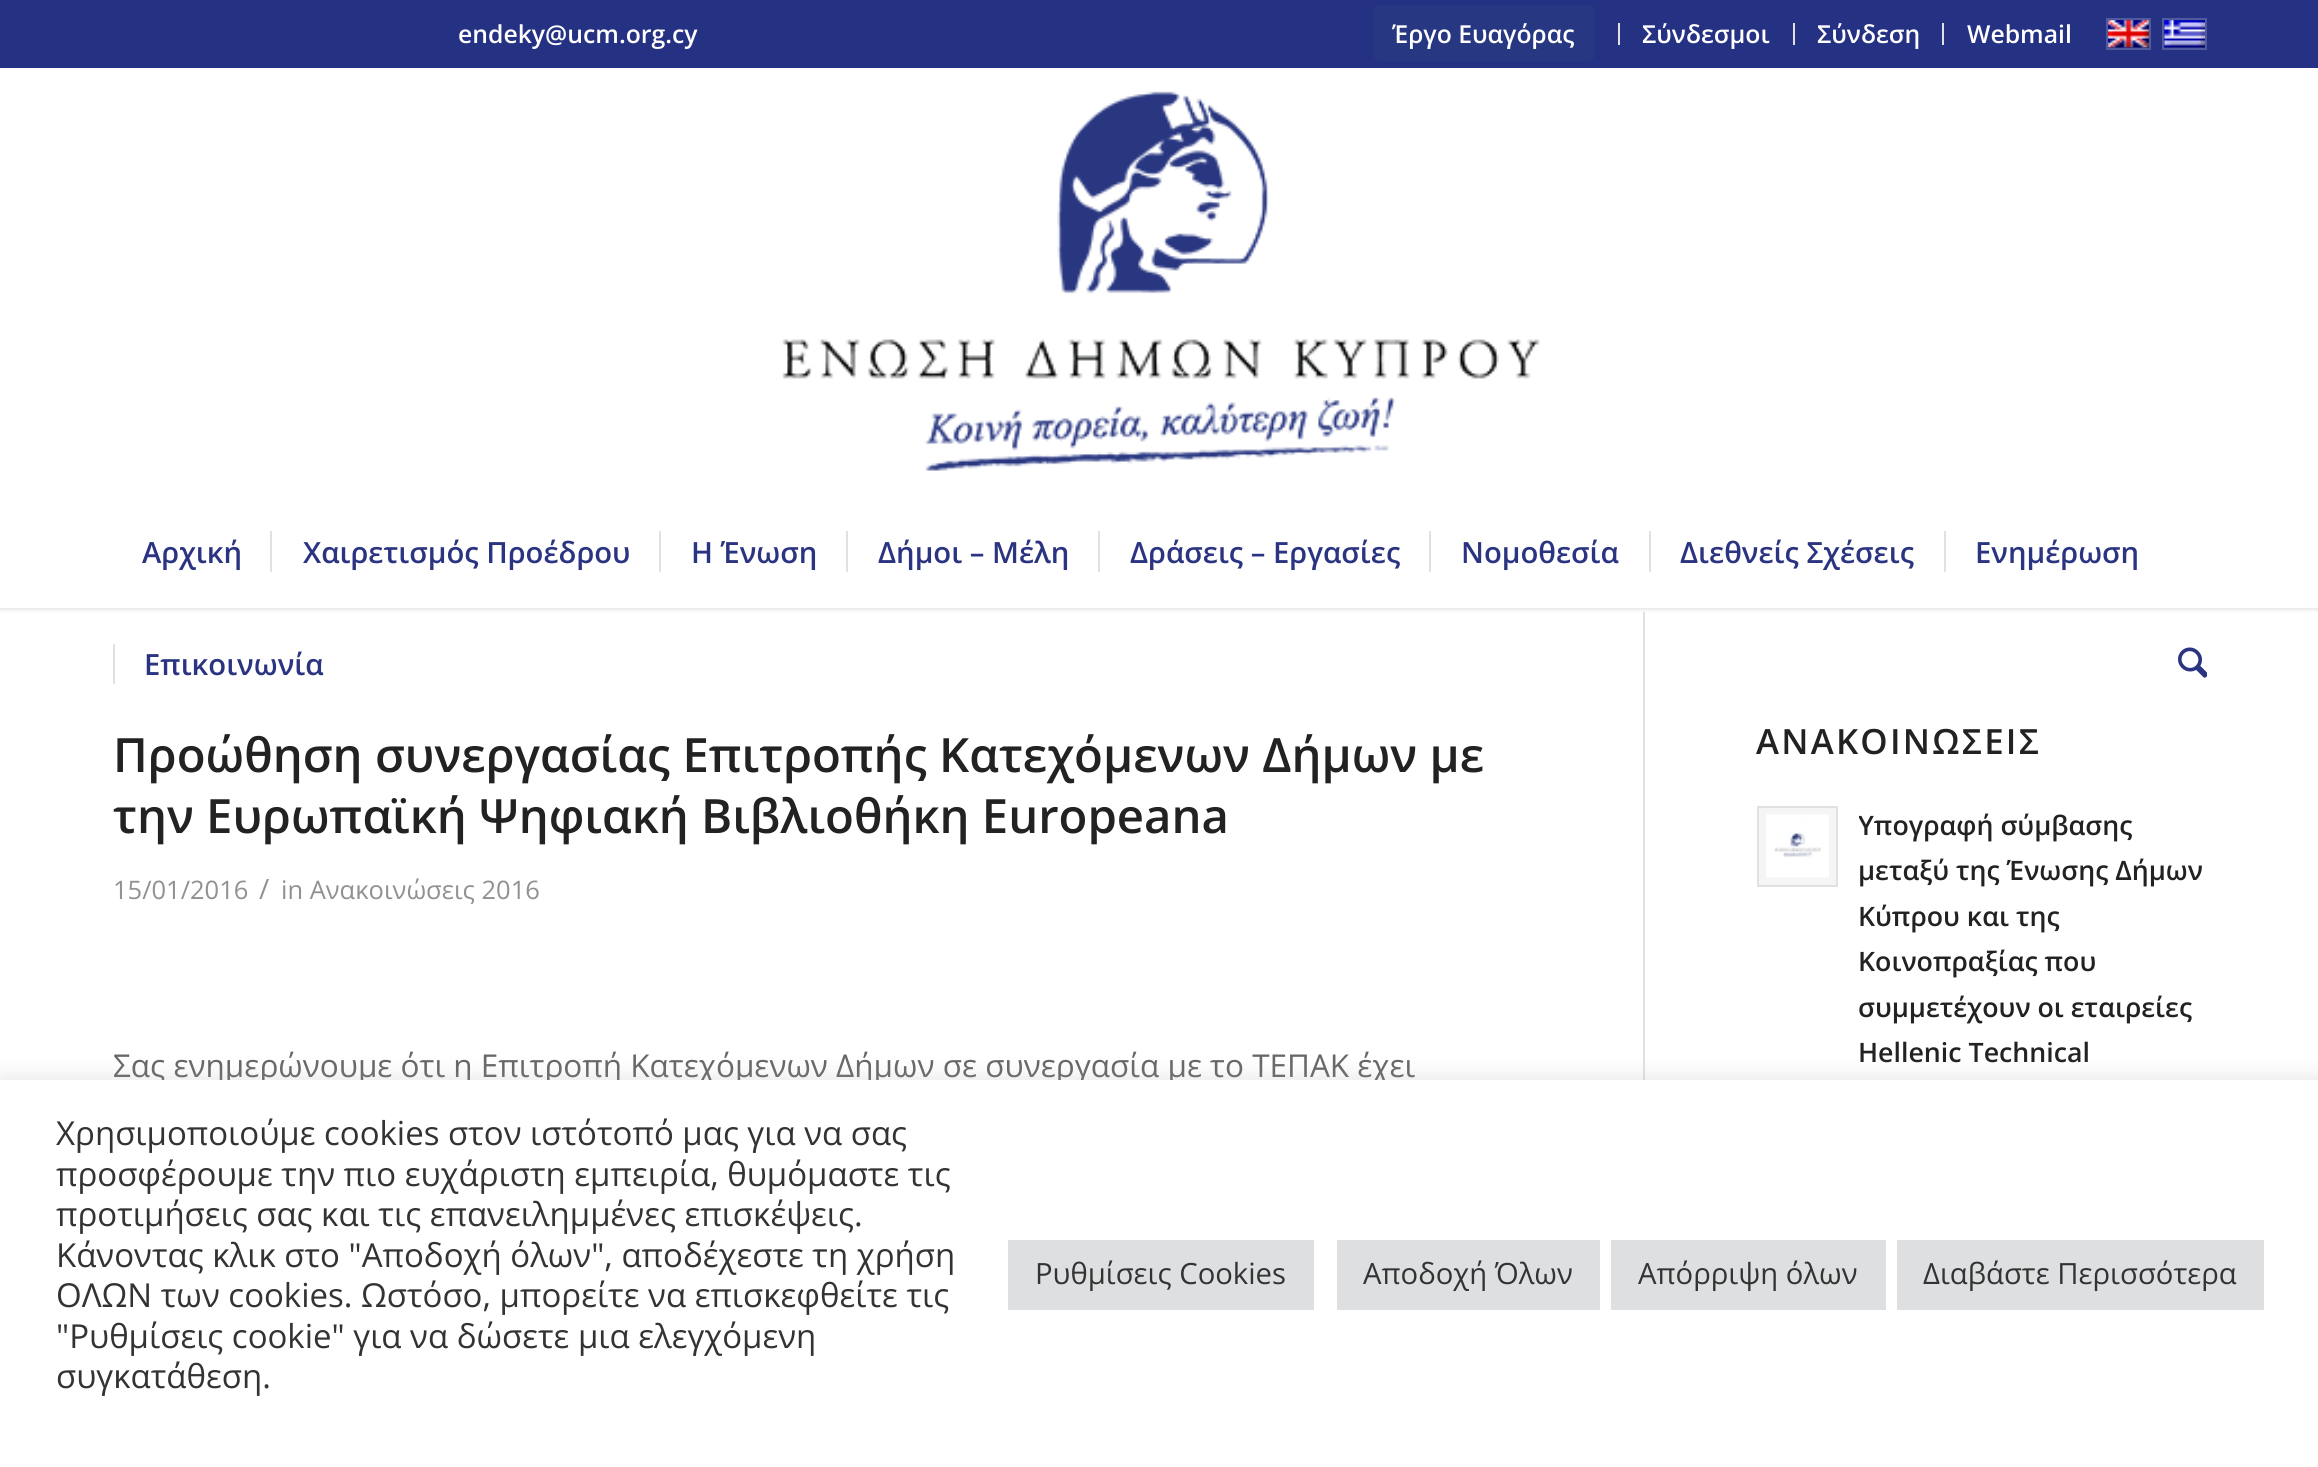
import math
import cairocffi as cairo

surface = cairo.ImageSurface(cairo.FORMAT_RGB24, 2318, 1467)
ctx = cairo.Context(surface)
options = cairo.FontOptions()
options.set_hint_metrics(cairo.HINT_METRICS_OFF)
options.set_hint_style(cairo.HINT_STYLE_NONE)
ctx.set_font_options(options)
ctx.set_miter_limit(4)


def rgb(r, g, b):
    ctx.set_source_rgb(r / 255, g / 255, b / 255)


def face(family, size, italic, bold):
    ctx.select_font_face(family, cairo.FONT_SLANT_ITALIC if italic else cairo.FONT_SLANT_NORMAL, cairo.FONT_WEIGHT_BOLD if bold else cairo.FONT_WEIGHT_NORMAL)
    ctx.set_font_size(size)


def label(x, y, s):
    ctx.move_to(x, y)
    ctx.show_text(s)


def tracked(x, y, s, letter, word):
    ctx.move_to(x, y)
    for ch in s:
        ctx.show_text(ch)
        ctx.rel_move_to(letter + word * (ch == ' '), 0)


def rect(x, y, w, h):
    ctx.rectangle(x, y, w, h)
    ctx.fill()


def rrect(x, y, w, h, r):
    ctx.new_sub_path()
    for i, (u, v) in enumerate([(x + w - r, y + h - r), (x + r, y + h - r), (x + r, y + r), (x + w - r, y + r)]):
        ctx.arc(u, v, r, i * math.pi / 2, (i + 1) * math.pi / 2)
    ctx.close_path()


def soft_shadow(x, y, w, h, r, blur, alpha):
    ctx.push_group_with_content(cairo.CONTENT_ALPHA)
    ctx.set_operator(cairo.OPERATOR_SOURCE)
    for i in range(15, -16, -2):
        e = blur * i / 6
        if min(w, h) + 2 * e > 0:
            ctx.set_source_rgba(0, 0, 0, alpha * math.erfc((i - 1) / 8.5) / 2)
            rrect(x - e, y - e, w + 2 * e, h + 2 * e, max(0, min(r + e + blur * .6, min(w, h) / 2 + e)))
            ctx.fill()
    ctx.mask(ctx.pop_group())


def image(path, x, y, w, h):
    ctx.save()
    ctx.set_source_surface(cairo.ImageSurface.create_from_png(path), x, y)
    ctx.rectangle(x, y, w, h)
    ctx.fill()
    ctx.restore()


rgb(255, 255, 255)
ctx.paint()
rgb(225, 225, 225)
rect(1643, 612, 2, 468)
rgb(0, 0, 0)
soft_shadow(-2, -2, 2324, 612, 0, 2, 0.1)
rgb(37, 49, 131)
rect(0, 0, 2318, 68)
face('Open Sans SemiBold', 24.75, 0, 0)
rgb(255, 255, 255)
label(458, 43, 'endeky@ucm.org.cy')
rgb(225, 225, 225)
rect(1618, 23, 2, 22)
rgb(40, 55, 129)
rrect(1373, 5, 222, 56, 7)
ctx.fill()
rgb(255, 255, 255)
label(1392, 43, 'Έργο Ευαγόρας')
rgb(225, 225, 225)
rect(1793, 23, 2, 22)
rgb(255, 255, 255)
label(1642, 43, 'Σύνδεσμοι')
rgb(225, 225, 225)
rect(1942, 23, 2, 22)
rgb(255, 255, 255)
label(1817, 43, 'Σύνδεση')
label(1967, 43, 'Webmail')
ctx.rectangle(2107, 19, 43, 30)
rgb(81, 90, 156)
ctx.stroke()
image('image0.png', 2108, 20, 41, 28)
ctx.rectangle(2163, 19, 43, 30)
ctx.stroke()
image('image1.png', 2164, 20, 41, 28)
rgb(255, 255, 255)
rect(0, 68, 2318, 540)
image('image2.png', 782, 91, 758, 380)
face('Open Sans SemiBold', 29.25, 0, 0)
rgb(43, 52, 129)
label(142, 563, 'Αρχική')
label(303, 563, 'Χαιρετισμός Προέδρου')
rgb(225, 225, 225)
rect(270, 531, 2, 41)
rgb(43, 52, 129)
label(691, 563, 'Η Ένωση')
rgb(225, 225, 225)
rect(659, 531, 2, 41)
rgb(43, 52, 129)
label(878, 563, 'Δήμοι – Μέλη')
rgb(225, 225, 225)
rect(846, 531, 2, 41)
rgb(43, 52, 129)
label(1130, 563, 'Δράσεις – Εργασίες')
rgb(225, 225, 225)
rect(1098, 531, 2, 41)
rgb(43, 52, 129)
label(1461, 563, 'Νομοθεσία')
rgb(225, 225, 225)
rect(1429, 531, 2, 41)
rgb(43, 52, 129)
label(1680, 563, 'Διεθνείς Σχέσεις')
rgb(225, 225, 225)
rect(1649, 531, 2, 41)
rgb(43, 52, 129)
label(1975, 563, 'Ενημέρωση')
rgb(225, 225, 225)
rect(1944, 531, 2, 41)
rgb(43, 52, 129)
label(144, 675, 'Επικοινωνία')
rgb(225, 225, 225)
rect(113, 644, 2, 40)
image('image3.png', 2178, 647, 29, 31)
face('Open Sans SemiBold', 47.25, 0, 0)
rgb(34, 34, 34)
label(113, 772, 'Προώθηση συνεργασίας Επιτροπής Κατεχόμενων Δήμων με')
label(113, 833, 'την Ευρωπαϊκή Ψηφιακή Βιβλιοθήκη Europeana')
face('Open Sans', 25.5, 0, 0)
rgb(145, 145, 145)
label(113, 899, '15/01/2016')
face('Open Sans', 28, 0, 0)
label(259, 899, '/')
face('Open Sans', 25.5, 0, 0)
label(281, 899, 'in Ανακοινώσεις 2016')
face('Open Sans', 31.5, 0, 0)
rgb(102, 102, 102)
label(113, 1077, 'Σας ενημερώνουμε ότι η Επιτροπή Κατεχόμενων Δήμων σε συνεργασία με το ΤΕΠΑΚ έχει')
face('Open Sans SemiBold', 34.75, 0, 0)
rgb(34, 34, 34)
tracked(1756, 754, 'ΑΝΑΚΟΙΝΩΣΕΙΣ', 2.25, 0)
rgb(245, 245, 245)
ctx.rectangle(1758, 807, 79, 79)
ctx.fill_preserve()
rgb(225, 225, 225)
ctx.stroke()
image('image4.png', 1766, 814, 63, 64)
ctx.save()
ctx.rectangle(1859, 801, 348, 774)
ctx.clip()
face('Open Sans SemiBold', 26.75, 0, 0)
rgb(34, 34, 34)
label(1858, 835, 'Υπογραφή σύμβασης')
ctx.restore()
face('Open Sans SemiBold', 26.75, 0, 0)
rgb(34, 34, 34)
label(1858, 880, 'μεταξύ της Ένωσης Δήμων')
label(1858, 926, 'Κύπρου και της')
label(1858, 971, 'Κοινοπραξίας που')
label(1858, 1017, 'συμμετέχουν οι εταιρείες')
label(1858, 1062, 'Hellenic Technical')
rgb(172, 171, 171)
soft_shadow(0, 1078, 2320, 387, 0, 11, 0.3)
rgb(255, 255, 255)
rect(0, 1080, 2318, 387)
face('Open Sans', 33, 0, 0)
rgb(51, 51, 51)
label(56, 1145, 'Χρησιμοποιούμε cookies στον ιστότοπό μας για να σας')
label(56, 1186, 'προσφέρουμε την πιο ευχάριστη εμπειρία, θυμόμαστε τις')
label(56, 1226, 'προτιμήσεις σας και τις επανειλημμένες επισκέψεις.')
label(56, 1267, 'Κάνοντας κλικ στο "Αποδοχή όλων", αποδέχεστε τη χρήση')
label(56, 1307, 'ΟΛΩΝ των cookies. Ωστόσο, μπορείτε να επισκεφθείτε τις')
label(56, 1348, '"Ρυθμίσεις cookie" για να δώσετε μια ελεγχόμενη')
label(56, 1388, 'συγκατάθεση.')
rgb(222, 223, 224)
rect(1008, 1240, 306, 70)
face('Open Sans', 29.25, 0, 0)
rgb(51, 51, 51)
label(1035, 1284, 'Ρυθμίσεις Cookies')
rgb(222, 223, 224)
rect(1337, 1240, 263, 70)
rgb(51, 51, 51)
label(1363, 1284, 'Αποδοχή Όλων')
rgb(222, 223, 224)
rect(1611, 1240, 275, 70)
rgb(51, 51, 51)
label(1638, 1284, 'Απόρριψη όλων')
rgb(222, 223, 224)
rect(1897, 1240, 367, 70)
rgb(51, 51, 51)
label(1923, 1284, 'Διαβάστε Περισσότερα')
surface.write_to_png('render.png')
